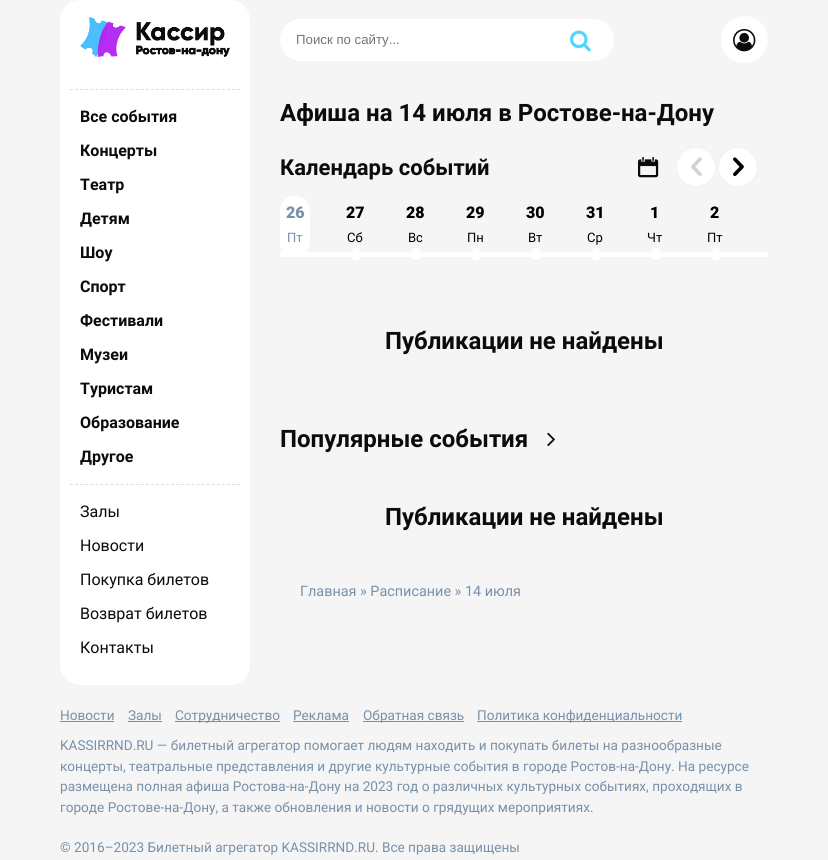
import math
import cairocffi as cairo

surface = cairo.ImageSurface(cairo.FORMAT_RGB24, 828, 860)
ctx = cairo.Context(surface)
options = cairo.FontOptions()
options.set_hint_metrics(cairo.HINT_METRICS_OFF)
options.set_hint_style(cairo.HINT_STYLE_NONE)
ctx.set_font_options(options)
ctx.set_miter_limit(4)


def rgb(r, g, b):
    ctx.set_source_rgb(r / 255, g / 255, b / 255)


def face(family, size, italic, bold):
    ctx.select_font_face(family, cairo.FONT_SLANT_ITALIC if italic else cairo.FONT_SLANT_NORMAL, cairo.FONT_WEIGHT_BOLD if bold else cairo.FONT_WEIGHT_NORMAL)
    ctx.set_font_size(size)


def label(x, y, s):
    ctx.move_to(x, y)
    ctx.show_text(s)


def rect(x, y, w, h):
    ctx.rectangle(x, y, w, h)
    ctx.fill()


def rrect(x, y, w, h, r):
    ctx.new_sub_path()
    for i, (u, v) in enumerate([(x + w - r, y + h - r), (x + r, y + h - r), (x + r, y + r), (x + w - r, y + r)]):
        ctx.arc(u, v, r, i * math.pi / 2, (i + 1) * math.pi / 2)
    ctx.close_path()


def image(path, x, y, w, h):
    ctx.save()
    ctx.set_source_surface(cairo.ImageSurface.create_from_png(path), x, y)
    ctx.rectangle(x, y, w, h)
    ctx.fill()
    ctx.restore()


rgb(245, 245, 245)
ctx.paint()
rgb(255, 255, 255)
ctx.new_path()
ctx.move_to(80, 0)
ctx.line_to(230, 0)
ctx.curve_to(241, 0, 250, 9, 250, 20)
ctx.line_to(250, 79)
ctx.line_to(60, 79)
ctx.line_to(60, 20)
ctx.curve_to(60, 9, 69, 0, 80, 0)
ctx.close_path()
ctx.fill()
image('image0.png', 80, 17, 150, 40)
rrect(280, 19, 334, 42, 21)
ctx.fill()
face('Liberation Sans', 13.25, 0, 0)
rgb(117, 117, 117)
label(296, 44, 'Поиск по сайту...')
image('image1.png', 570, 30, 21, 22)
rgb(255, 255, 255)
ctx.arc(744.5, 39.5, 23.5, 0, 2 * math.pi)
ctx.fill()
image('image2.png', 733, 29, 23, 23)
ctx.new_path()
ctx.move_to(60, 79)
ctx.line_to(250, 79)
ctx.line_to(250, 665)
ctx.curve_to(250, 676, 241, 685, 230, 685)
ctx.line_to(80, 685)
ctx.curve_to(69, 685, 60, 676, 60, 665)
ctx.close_path()
ctx.fill()
ctx.new_path()
ctx.move_to(70, 89.5)
ctx.line_to(240, 89.5)
rgb(221, 221, 221)
ctx.set_line_width(1)
ctx.set_dash([3, 2.06])
ctx.stroke()
face('Roboto', 16, 0, 1)
rgb(11, 11, 11)
label(80, 122, 'Все события')
label(80, 156, 'Концерты')
label(80, 190, 'Театр')
label(80, 224, 'Детям')
label(80, 258, 'Шоу')
label(80, 292, 'Спорт')
label(80, 326, 'Фестивали')
label(80, 360, 'Музеи')
label(80, 394, 'Туристам')
label(80, 428, 'Образование')
label(80, 462, 'Другое')
ctx.new_path()
ctx.move_to(70, 484.5)
ctx.line_to(240, 484.5)
rgb(221, 221, 221)
ctx.stroke()
face('Roboto', 16, 0, 0)
rgb(11, 11, 11)
label(80, 517, 'Залы')
label(80, 551, 'Новости')
label(80, 585, 'Покупка билетов')
label(80, 619, 'Возврат билетов')
label(80, 653, 'Контакты')
face('Roboto', 24, 0, 1)
label(280, 121, 'Афиша на 14 июля в Ростове-на-Дону')
face('Roboto', 22, 0, 1)
label(280, 175, 'Календарь событий')
image('image3.png', 638, 157, 21, 21)
rgb(255, 255, 255)
ctx.arc(696, 167, 19.5, 0, 2 * math.pi)
ctx.fill_preserve()
rgb(240, 240, 240)
ctx.set_dash([])
ctx.stroke()
image('image4.png', 691, 157, 11, 19)
rgb(255, 255, 255)
ctx.arc(738, 167, 19.5, 0, 2 * math.pi)
ctx.fill_preserve()
rgb(240, 240, 240)
ctx.stroke()
image('image5.png', 733, 157, 11, 20)
rgb(255, 255, 255)
ctx.new_path()
ctx.move_to(282.5, 252)
ctx.line_to(768, 252)
ctx.line_to(768, 257)
ctx.line_to(282.5, 257)
ctx.curve_to(281, 257, 280, 256, 280, 254.5)
ctx.curve_to(280, 253, 281, 252, 282.5, 252)
ctx.close_path()
ctx.fill()
rrect(280, 196, 30, 61, 14)
ctx.fill()
face('Roboto Black', 16, 0, 0)
rgb(120, 144, 168)
label(286, 218, '26')
face('Roboto', 13, 0, 0)
label(287, 242, 'Пт')
face('Roboto Black', 16, 0, 0)
rgb(0, 0, 0)
label(346, 218, '27')
face('Roboto', 13, 0, 0)
label(347, 242, 'Сб')
rgb(255, 255, 255)
ctx.new_path()
ctx.arc(356, 254, 6, 0, 2 * math.pi)
ctx.fill()
face('Roboto Black', 16, 0, 0)
rgb(0, 0, 0)
label(406, 218, '28')
face('Roboto', 13, 0, 0)
label(408, 242, 'Вс')
rgb(255, 255, 255)
ctx.new_path()
ctx.arc(416, 254, 6, 0, 2 * math.pi)
ctx.fill()
face('Roboto Black', 16, 0, 0)
rgb(0, 0, 0)
label(466, 218, '29')
face('Roboto', 13, 0, 0)
label(467, 242, 'Пн')
rgb(255, 255, 255)
ctx.new_path()
ctx.arc(476, 254, 6, 0, 2 * math.pi)
ctx.fill()
face('Roboto Black', 16, 0, 0)
rgb(0, 0, 0)
label(526, 218, '30')
face('Roboto', 13, 0, 0)
label(528, 242, 'Вт')
rgb(255, 255, 255)
ctx.new_path()
ctx.arc(536, 254, 6, 0, 2 * math.pi)
ctx.fill()
face('Roboto Black', 16, 0, 0)
rgb(0, 0, 0)
label(586, 218, '31')
face('Roboto', 13, 0, 0)
label(587, 242, 'Ср')
rgb(255, 255, 255)
ctx.new_path()
ctx.arc(596, 254, 6, 0, 2 * math.pi)
ctx.fill()
face('Roboto Black', 16, 0, 0)
rgb(0, 0, 0)
label(650, 218, '1')
face('Roboto', 13, 0, 0)
label(647, 242, 'Чт')
rgb(255, 255, 255)
ctx.new_path()
ctx.arc(656, 254, 6, 0, 2 * math.pi)
ctx.fill()
face('Roboto Black', 16, 0, 0)
rgb(0, 0, 0)
label(710, 218, '2')
face('Roboto', 13, 0, 0)
label(707, 242, 'Пт')
rgb(255, 255, 255)
ctx.new_path()
ctx.arc(716, 254, 6, 0, 2 * math.pi)
ctx.fill()
face('Roboto', 24, 0, 1)
rgb(11, 11, 11)
label(385, 349, 'Публикации не найдены')
label(280, 447, 'Популярные события')
image('image6.png', 547, 432, 8, 15)
label(385, 525, 'Публикации не найдены')
face('Roboto', 14.4, 0, 0)
rgb(120, 144, 168)
label(300, 596, 'Главная » Расписание » 14 июля')
face('Roboto', 13.6, 0, 0)
label(60, 720, 'Новости')
rect(60, 721, 54, 1)
label(128, 720, 'Залы')
rect(128, 721, 34, 1)
rect(175, 721, 105, 1)
label(175, 720, 'Сотрудничество')
label(293, 720, 'Реклама')
rect(293, 721, 56, 1)
rect(363, 721, 101, 1)
label(363, 720, 'Обратная связь')
rect(477, 721, 205, 1)
label(477, 720, 'Политика конфиденциальности')
label(60, 750, 'KASSIRRND.RU — билетный агрегатор помогает людям находить и покупать билеты на разнообразные')
label(60, 771, 'концерты, театральные представления и другие культурные события в городе Ростов-на-Дону. На ресурсе')
label(60, 791, 'размещена полная афиша Ростова-на-Дону на 2023 год о различных культурных событиях, проходящих в')
label(60, 812, 'городе Ростове-на-Дону, а также обновления и новости о грядущих мероприятиях.')
label(60, 852, '© 2016–2023 Билетный агрегатор KASSIRRND.RU. Все права защищены')
surface.write_to_png('render.png')
